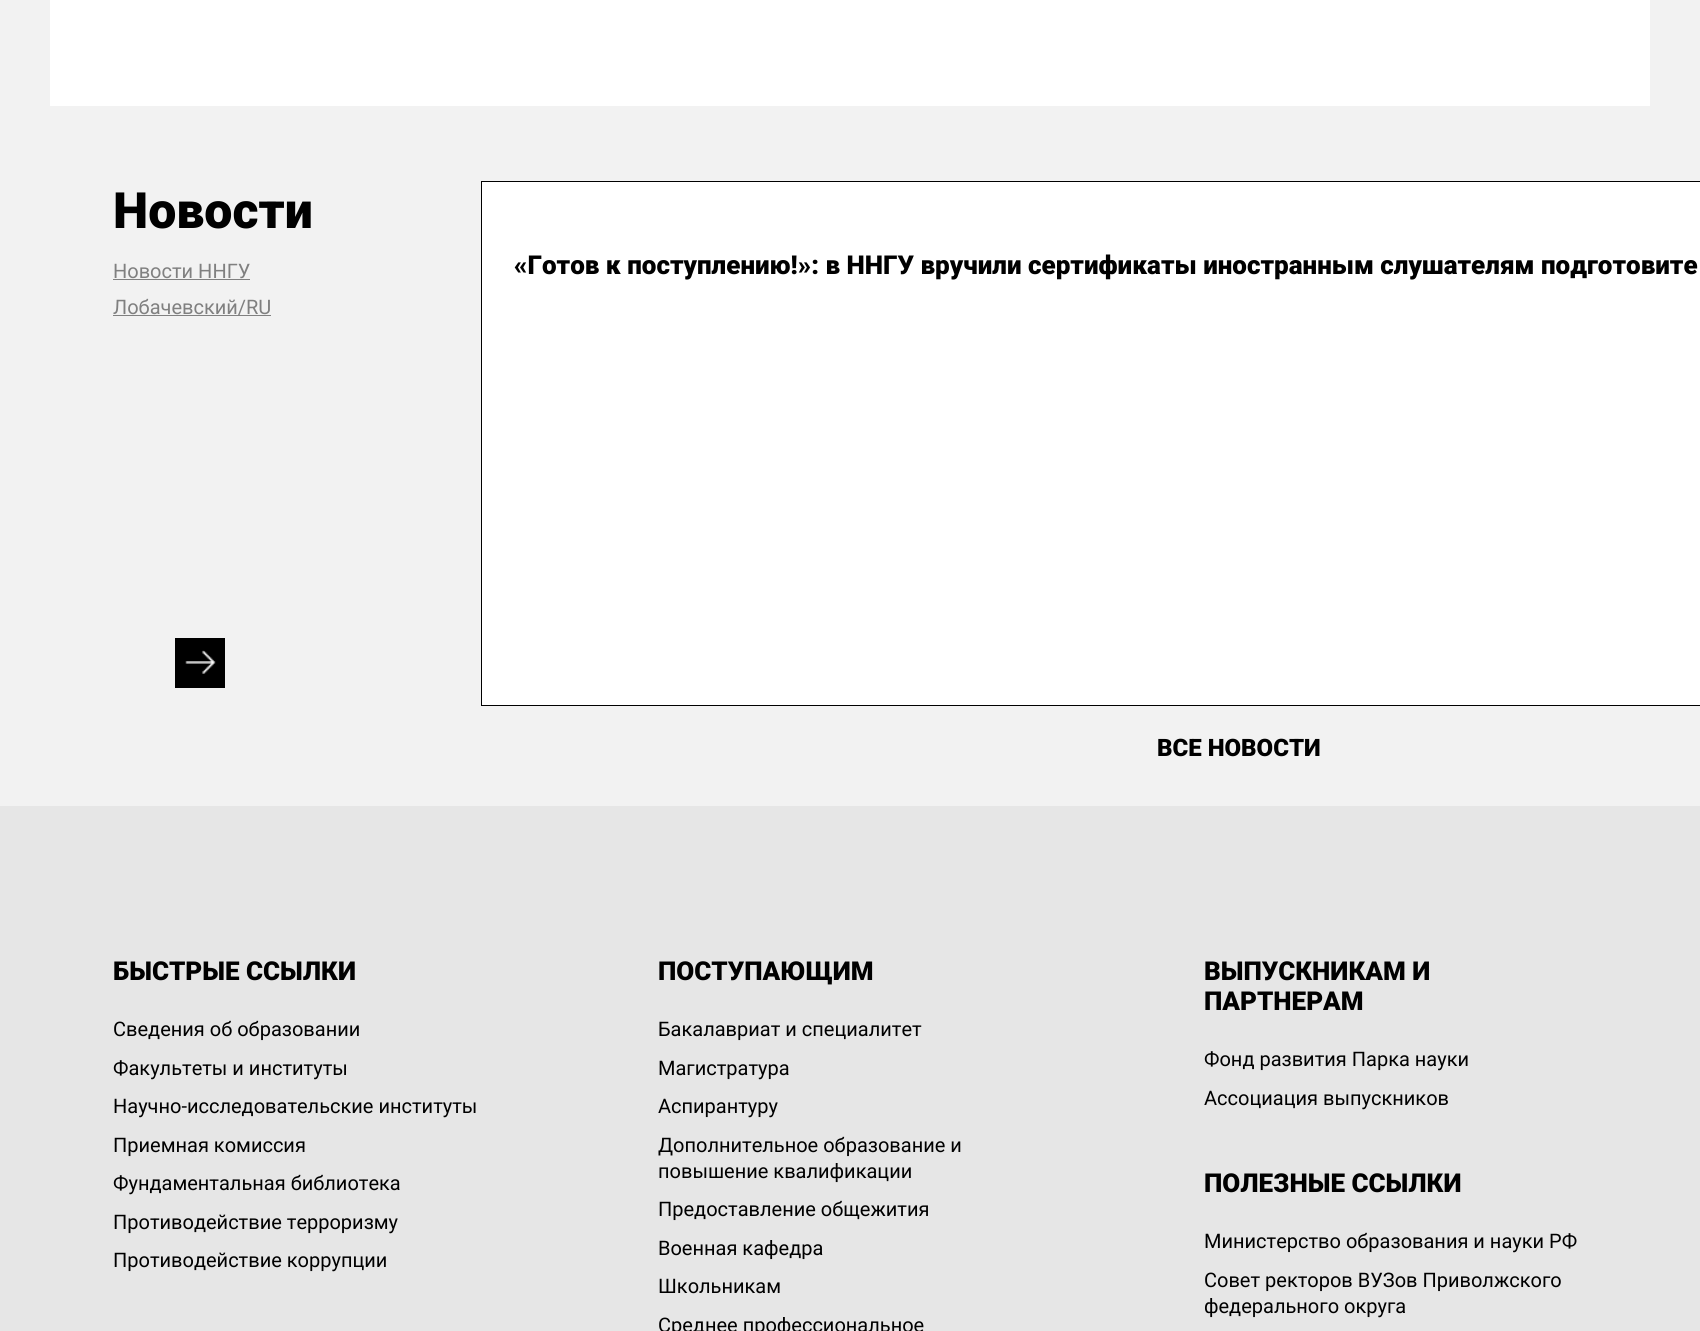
import math
import cairocffi as cairo

surface = cairo.ImageSurface(cairo.FORMAT_RGB24, 1700, 1331)
ctx = cairo.Context(surface)
options = cairo.FontOptions()
options.set_hint_metrics(cairo.HINT_METRICS_OFF)
options.set_hint_style(cairo.HINT_STYLE_NONE)
ctx.set_font_options(options)
ctx.set_miter_limit(4)


def rgb(r, g, b):
    ctx.set_source_rgb(r / 255, g / 255, b / 255)


def face(family, size, italic, bold):
    ctx.select_font_face(family, cairo.FONT_SLANT_ITALIC if italic else cairo.FONT_SLANT_NORMAL, cairo.FONT_WEIGHT_BOLD if bold else cairo.FONT_WEIGHT_NORMAL)
    ctx.set_font_size(size)


def label(x, y, s):
    ctx.move_to(x, y)
    ctx.show_text(s)


def rect(x, y, w, h):
    ctx.rectangle(x, y, w, h)
    ctx.fill()


def image(path, x, y, w, h):
    ctx.save()
    ctx.set_source_surface(cairo.ImageSurface.create_from_png(path), x, y)
    ctx.rectangle(x, y, w, h)
    ctx.fill()
    ctx.restore()


rgb(242, 242, 242)
ctx.paint()
rgb(255, 255, 255)
rect(50, 0, 1600, 106)
face('Roboto Black', 50, 0, 0)
rgb(0, 0, 0)
label(113, 228, 'Новости')
face('Roboto', 20, 0, 0)
rgb(128, 128, 128)
label(113, 278, 'Новости ННГУ')
rect(113, 279, 137, 1)
rect(113, 315, 158, 1)
label(113, 314, 'Лобачевский/RU')
rgb(255, 255, 255)
ctx.rectangle(481.5, 181.5, 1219, 524)
ctx.fill_preserve()
rgb(0, 0, 0)
ctx.set_line_width(1)
ctx.stroke()
face('Roboto Black', 26, 0, 0)
label(514, 274, '«Готов к поступлению!»: в ННГУ вручили сертификаты иностранным слушателям подготовите')
rect(175, 638, 50, 50)
image('image0.png', 185, 650, 31, 24)
face('Roboto Black', 24, 0, 0)
label(1157, 756, 'ВСЕ НОВОСТИ')
rgb(230, 230, 230)
rect(0, 806, 1700, 525)
face('Roboto Black', 26, 0, 0)
rgb(0, 0, 0)
label(113, 980, 'БЫСТРЫЕ ССЫЛКИ')
face('Roboto', 20, 0, 0)
label(113, 1036, 'Сведения об образовании')
label(113, 1075, 'Факультеты и институты')
label(113, 1113, 'Научно-исследовательские институты')
label(113, 1152, 'Приемная комиссия')
label(113, 1190, 'Фундаментальная библиотека')
label(113, 1229, 'Противодействие терроризму')
label(113, 1267, 'Противодействие коррупции')
face('Roboto Black', 26, 0, 0)
label(658, 980, 'ПОСТУПАЮЩИМ')
face('Roboto', 20, 0, 0)
label(658, 1036, 'Бакалавриат и специалитет')
label(658, 1075, 'Магистратура')
label(658, 1113, 'Аспирантуру')
label(658, 1152, 'Дополнительное образование и')
label(658, 1178, 'повышение квалификации')
label(658, 1216, 'Предоставление общежития')
label(658, 1255, 'Военная кафедра')
label(658, 1293, 'Школьникам')
label(658, 1332, 'Среднее профессиональное')
face('Roboto Black', 26, 0, 0)
label(1204, 980, 'ВЫПУСКНИКАМ И')
label(1204, 1010, 'ПАРТНЕРАМ')
face('Roboto', 20, 0, 0)
label(1204, 1066, 'Фонд развития Парка науки')
label(1204, 1105, 'Ассоциация выпускников')
face('Roboto Black', 26, 0, 0)
label(1204, 1192, 'ПОЛЕЗНЫЕ ССЫЛКИ')
face('Roboto', 20, 0, 0)
label(1204, 1248, 'Министерство образования и науки РФ')
label(1204, 1287, 'Совет ректоров ВУЗов Приволжского')
label(1204, 1313, 'федерального округа')
surface.write_to_png('render.png')
